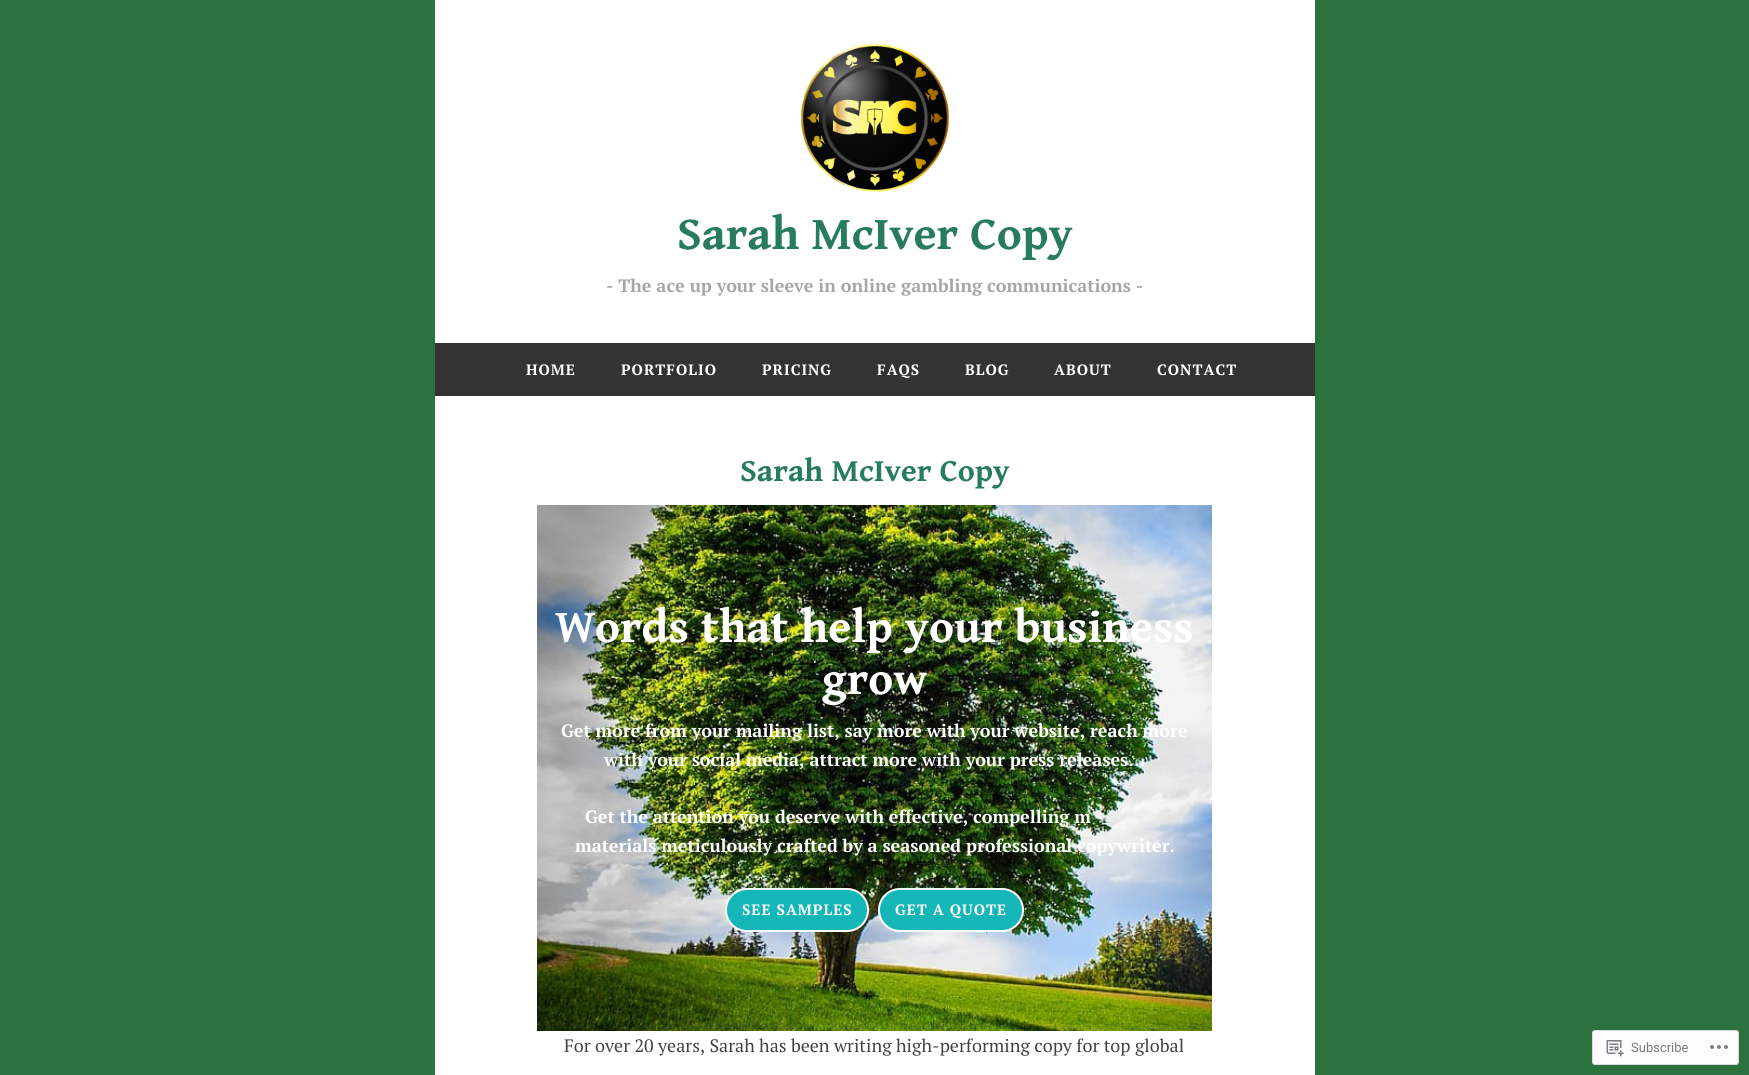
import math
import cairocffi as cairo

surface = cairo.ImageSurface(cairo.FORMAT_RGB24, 1749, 1075)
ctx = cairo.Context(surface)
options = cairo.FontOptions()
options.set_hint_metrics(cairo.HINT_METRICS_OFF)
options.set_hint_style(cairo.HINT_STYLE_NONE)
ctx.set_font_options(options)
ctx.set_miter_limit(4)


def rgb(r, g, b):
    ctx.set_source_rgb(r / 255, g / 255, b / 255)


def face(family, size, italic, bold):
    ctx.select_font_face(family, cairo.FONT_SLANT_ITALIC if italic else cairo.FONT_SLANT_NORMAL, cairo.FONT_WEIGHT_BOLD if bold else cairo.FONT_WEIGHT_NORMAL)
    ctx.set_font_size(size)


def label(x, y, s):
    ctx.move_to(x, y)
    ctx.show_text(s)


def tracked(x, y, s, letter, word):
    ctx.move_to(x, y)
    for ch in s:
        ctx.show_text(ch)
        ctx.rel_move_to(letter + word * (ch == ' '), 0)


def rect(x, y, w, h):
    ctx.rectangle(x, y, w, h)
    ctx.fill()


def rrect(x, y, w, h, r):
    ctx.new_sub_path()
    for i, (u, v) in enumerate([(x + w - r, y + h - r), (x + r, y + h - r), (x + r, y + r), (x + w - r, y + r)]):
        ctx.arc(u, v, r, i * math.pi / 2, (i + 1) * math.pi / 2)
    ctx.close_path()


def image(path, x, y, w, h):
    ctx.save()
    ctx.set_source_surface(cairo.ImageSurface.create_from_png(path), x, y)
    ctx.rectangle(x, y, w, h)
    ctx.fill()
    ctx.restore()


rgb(43, 114, 62)
ctx.paint()
rgb(255, 255, 255)
rect(435, 0, 880, 343)
image('image0.png', 800, 43, 150, 150)
face('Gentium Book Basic', 47, 0, 1)
rgb(38, 124, 93)
label(677, 249, 'Sarah McIver Copy')
face('PT Serif', 18, 0, 1)
rgb(168, 166, 161)
label(606, 292, '- The ace up your sleeve in online gambling communications -')
rgb(51, 51, 51)
rect(435, 343, 880, 51)
rgb(49, 49, 49)
rect(435, 394, 880, 2)
face('PT Serif', 15, 0, 1)
rgb(255, 255, 255)
tracked(526, 375, 'HOME', 1, 0)
tracked(621, 375, 'PORTFOLIO', 1, 0)
tracked(762, 375, 'PRICING', 1, 0)
tracked(877, 375, 'FAQS', 1, 0)
tracked(965, 375, 'BLOG', 1, 0)
tracked(1054, 375, 'ABOUT', 1, 0)
tracked(1157, 375, 'CONTACT', 1, 0)
rect(435, 396, 880, 679)
face('Gentium Book Basic', 32, 0, 1)
rgb(38, 124, 93)
label(740, 481, 'Sarah McIver Copy')
image('image1.png', 537, 505, 675, 526)
face('Gentium Book Basic', 47, 0, 1)
rgb(255, 255, 255)
label(555, 642, 'Words that help your business')
label(822, 694, 'grow')
face('PT Serif', 18, 0, 1)
label(561, 737, 'Get more from your mailing list, say more with your website, reach more')
label(604, 766, 'with your social media, attract more with your press releases…')
label(585, 823, 'Get the attention you deserve with effective, compelling m')
label(575, 852, 'materials meticulously crafted by a seasoned professional copywriter.')
rgb(21, 182, 184)
rrect(726, 889, 142, 42, 21)
ctx.fill_preserve()
rgb(255, 255, 255)
ctx.stroke()
face('PT Serif', 15, 0, 1)
tracked(742, 915, 'SEE SAMPLES', 1, 0)
rgb(21, 182, 184)
rrect(879, 889, 144, 42, 21)
ctx.fill_preserve()
rgb(255, 255, 255)
ctx.stroke()
tracked(895, 915, 'GET A QUOTE', 1, 0)
face('PT Serif', 18, 0, 0)
rgb(68, 67, 64)
label(564, 1052, 'For over 20 years, Sarah has been writing high-performing copy for top global')
rgb(251, 252, 251)
rrect(1592.5, 1030.5, 146, 34, 2.5)
ctx.fill_preserve()
rgb(216, 218, 219)
ctx.set_line_width(1)
ctx.stroke()
image('image2.png', 1606, 1040, 18, 17)
face('Roboto', 13, 0, 0)
rgb(118, 124, 129)
label(1631, 1052, 'Subscribe')
image('image3.png', 1710, 1045, 18, 4)
surface.write_to_png('render.png')
